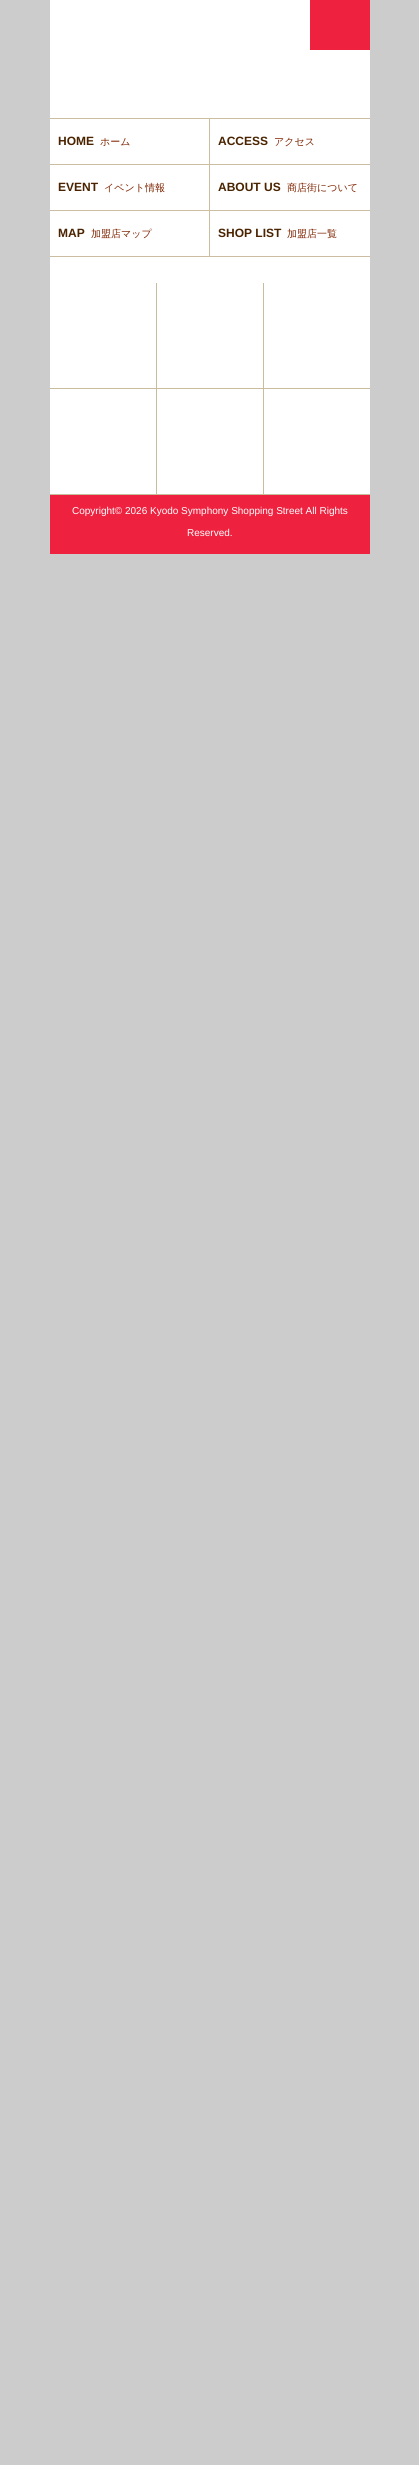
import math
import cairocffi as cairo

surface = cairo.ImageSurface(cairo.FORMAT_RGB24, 419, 2465)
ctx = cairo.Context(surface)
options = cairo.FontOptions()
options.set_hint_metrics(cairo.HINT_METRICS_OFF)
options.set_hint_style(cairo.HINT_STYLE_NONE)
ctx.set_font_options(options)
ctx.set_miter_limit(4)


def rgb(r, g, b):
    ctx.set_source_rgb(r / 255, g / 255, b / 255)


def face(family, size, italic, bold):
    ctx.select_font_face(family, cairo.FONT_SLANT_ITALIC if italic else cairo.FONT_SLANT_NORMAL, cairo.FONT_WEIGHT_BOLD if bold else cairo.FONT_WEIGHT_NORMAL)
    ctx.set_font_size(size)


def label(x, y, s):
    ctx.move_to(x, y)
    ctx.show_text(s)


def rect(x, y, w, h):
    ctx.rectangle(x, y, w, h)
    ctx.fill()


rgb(204, 204, 204)
ctx.paint()
rgb(255, 255, 255)
rect(50, 0, 320, 494)
rgb(238, 33, 63)
rect(310, 0, 60, 50)
rgb(203, 190, 160)
rect(50, 256, 320, 1)
rect(50, 118, 320, 1)
rect(209, 118, 1, 46)
face('Liberation Sans', 12, 0, 1)
rgb(74, 35, 0)
label(58, 145, 'HOME')
face('WenQuanYi Zen Hei Medium', 10, 0, 0)
rgb(126, 35, 0)
label(100, 145, 'ホーム')
face('Liberation Sans', 12, 0, 1)
rgb(74, 35, 0)
label(218, 145, 'ACCESS')
face('WenQuanYi Zen Hei Medium', 10, 0, 0)
rgb(126, 35, 0)
label(274, 145, 'アクセス')
rgb(203, 190, 160)
rect(50, 164, 320, 1)
rect(209, 164, 1, 46)
face('Liberation Sans', 12, 0, 1)
rgb(74, 35, 0)
label(58, 191, 'EVENT')
face('WenQuanYi Zen Hei Medium', 10, 0, 0)
rgb(126, 35, 0)
label(104, 191, 'イベント情報')
face('Liberation Sans', 12, 0, 1)
rgb(74, 35, 0)
label(218, 191, 'ABOUT US')
face('WenQuanYi Zen Hei Medium', 10, 0, 0)
rgb(126, 35, 0)
label(287, 191, '商店街について')
rgb(203, 190, 160)
rect(50, 210, 320, 1)
rect(209, 210, 1, 46)
face('Liberation Sans', 12, 0, 1)
rgb(74, 35, 0)
label(58, 237, 'MAP')
face('WenQuanYi Zen Hei Medium', 10, 0, 0)
rgb(126, 35, 0)
label(91, 237, '加盟店マップ')
face('Liberation Sans', 12, 0, 1)
rgb(74, 35, 0)
label(218, 237, 'SHOP LIST')
face('WenQuanYi Zen Hei Medium', 10, 0, 0)
rgb(126, 35, 0)
label(287, 237, '加盟店一覧')
rgb(201, 188, 156)
rect(156, 283, 1, 212)
rect(50, 388, 107, 1)
rect(263, 283, 1, 212)
rect(157, 388, 213, 1)
rect(50, 494, 320, 1)
rgb(238, 33, 63)
rect(50, 495, 320, 59)
face('Liberation Sans', 10, 0, 0)
rgb(255, 255, 255)
label(72, 514, 'Copyright© 2026 Kyodo Symphony Shopping Street All Rights')
label(187, 536, 'Reserved.')
surface.write_to_png('render.png')
